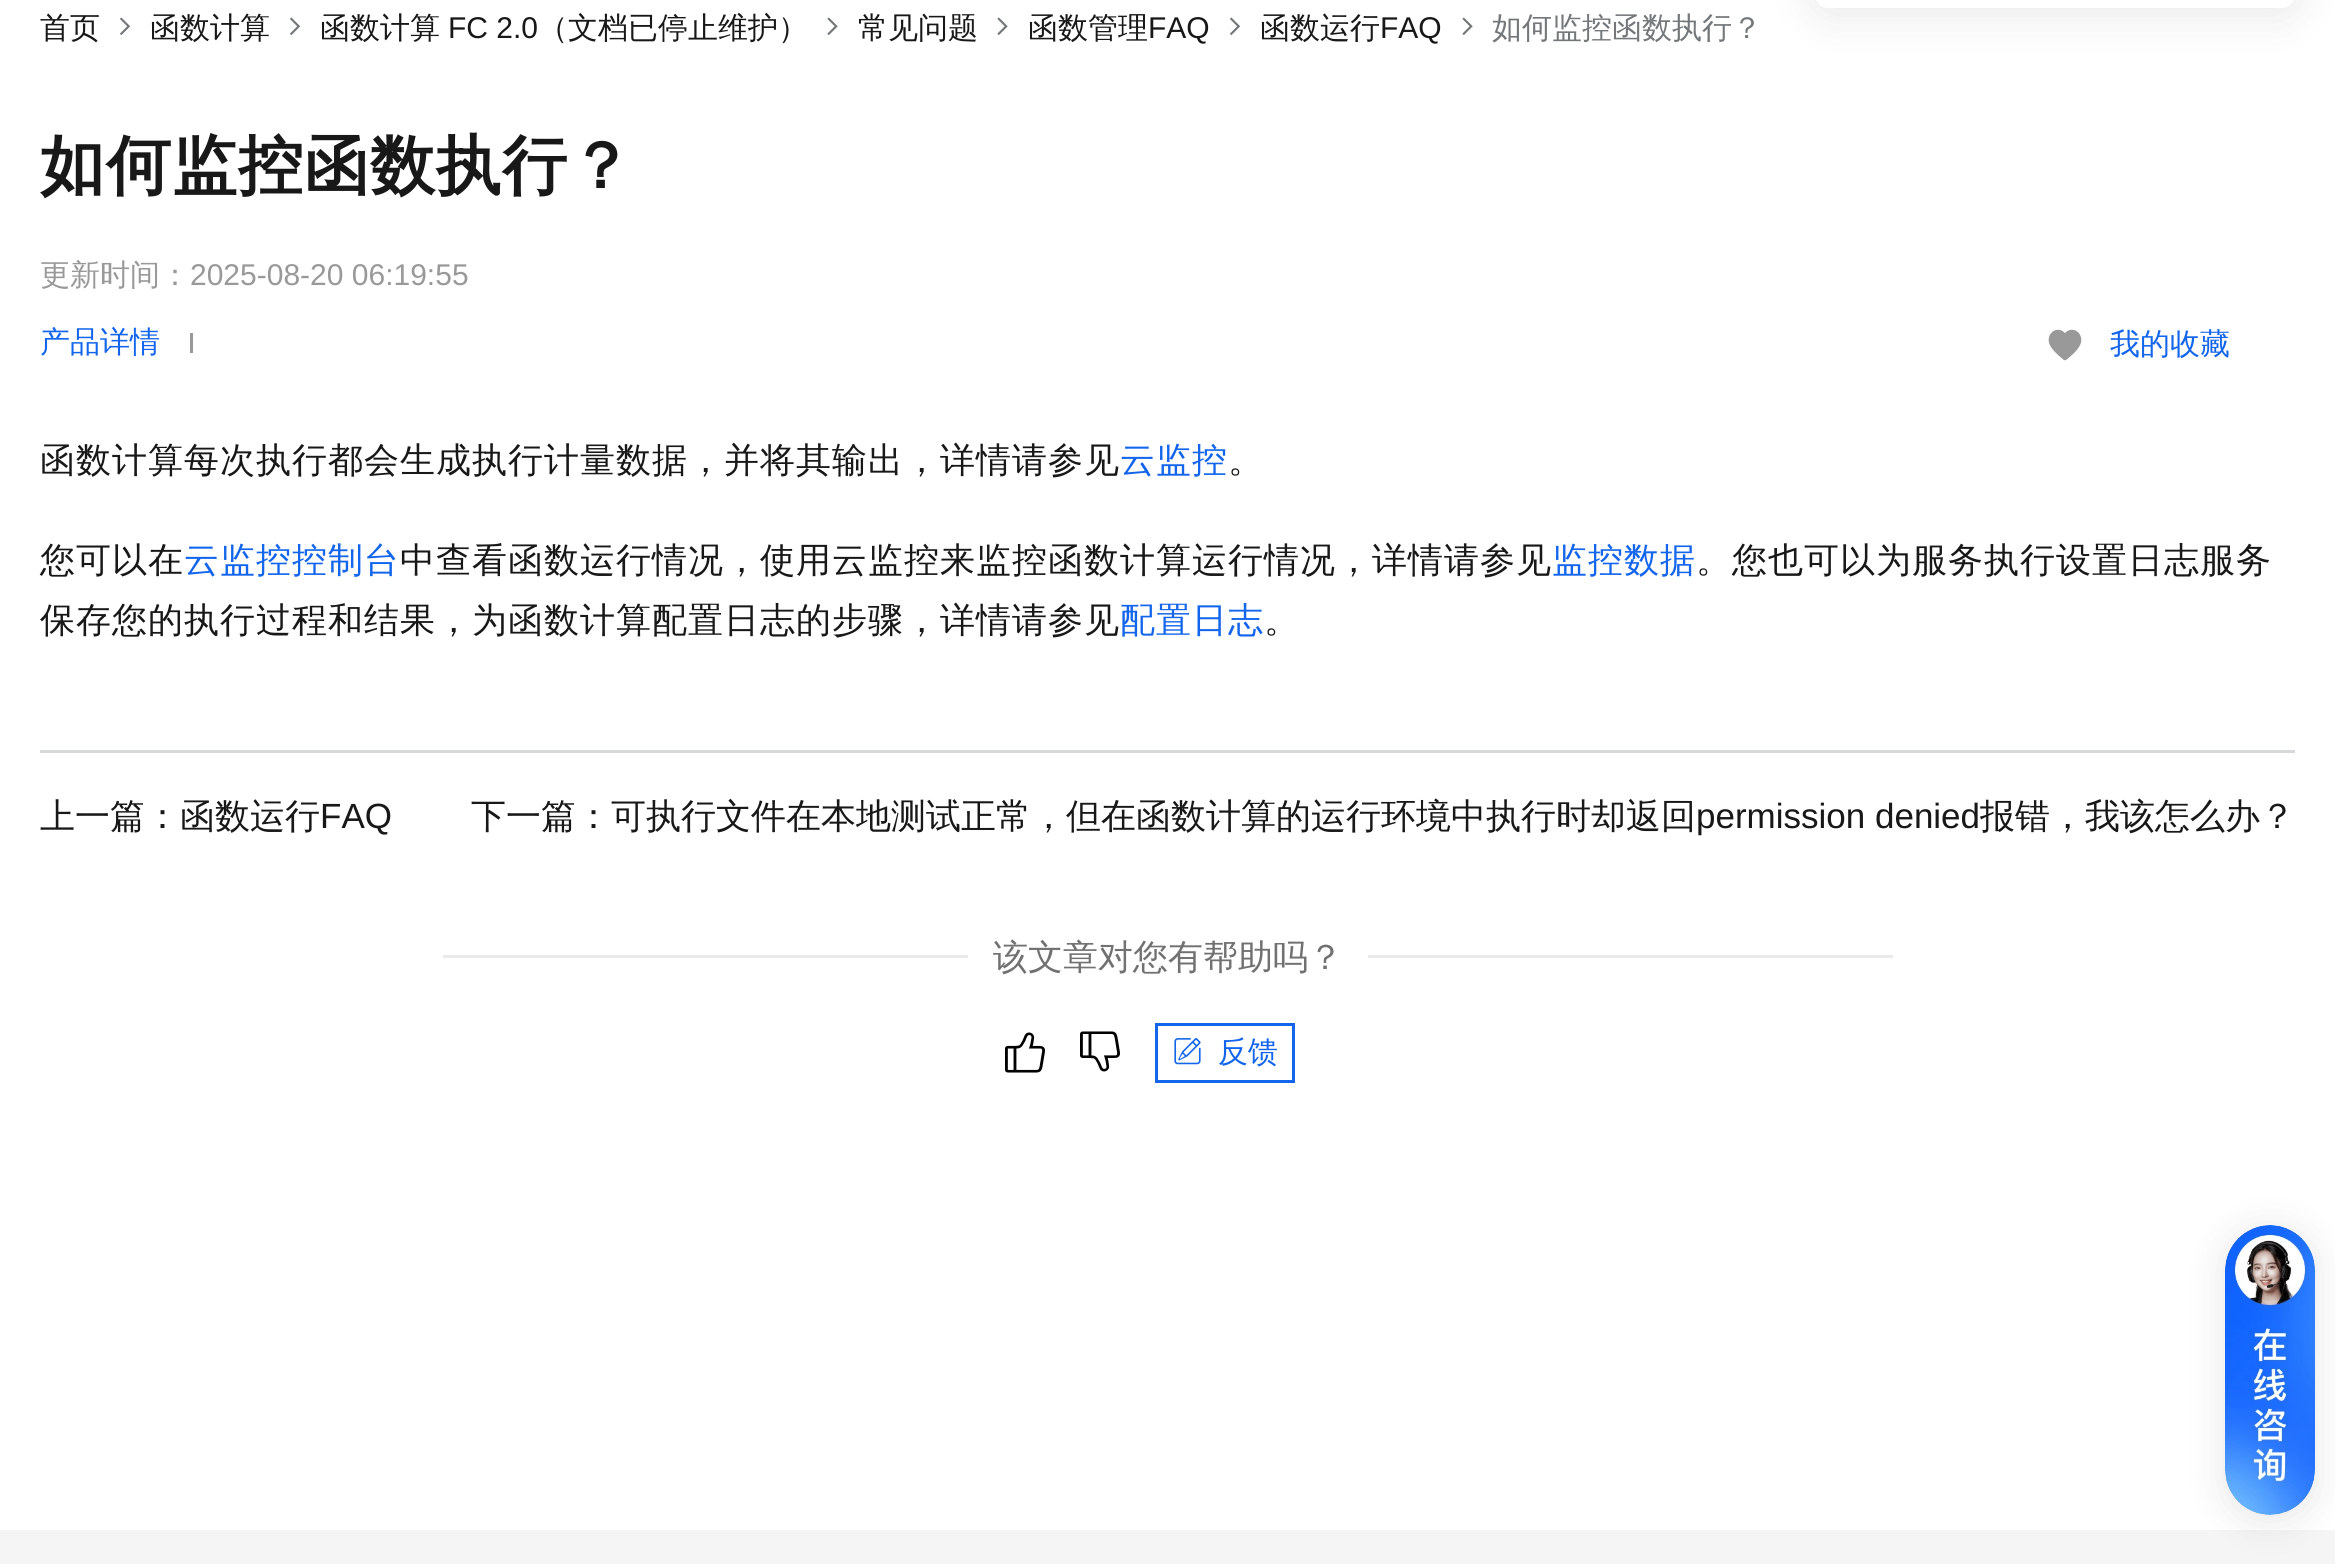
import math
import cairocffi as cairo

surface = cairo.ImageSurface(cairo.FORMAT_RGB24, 2335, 1564)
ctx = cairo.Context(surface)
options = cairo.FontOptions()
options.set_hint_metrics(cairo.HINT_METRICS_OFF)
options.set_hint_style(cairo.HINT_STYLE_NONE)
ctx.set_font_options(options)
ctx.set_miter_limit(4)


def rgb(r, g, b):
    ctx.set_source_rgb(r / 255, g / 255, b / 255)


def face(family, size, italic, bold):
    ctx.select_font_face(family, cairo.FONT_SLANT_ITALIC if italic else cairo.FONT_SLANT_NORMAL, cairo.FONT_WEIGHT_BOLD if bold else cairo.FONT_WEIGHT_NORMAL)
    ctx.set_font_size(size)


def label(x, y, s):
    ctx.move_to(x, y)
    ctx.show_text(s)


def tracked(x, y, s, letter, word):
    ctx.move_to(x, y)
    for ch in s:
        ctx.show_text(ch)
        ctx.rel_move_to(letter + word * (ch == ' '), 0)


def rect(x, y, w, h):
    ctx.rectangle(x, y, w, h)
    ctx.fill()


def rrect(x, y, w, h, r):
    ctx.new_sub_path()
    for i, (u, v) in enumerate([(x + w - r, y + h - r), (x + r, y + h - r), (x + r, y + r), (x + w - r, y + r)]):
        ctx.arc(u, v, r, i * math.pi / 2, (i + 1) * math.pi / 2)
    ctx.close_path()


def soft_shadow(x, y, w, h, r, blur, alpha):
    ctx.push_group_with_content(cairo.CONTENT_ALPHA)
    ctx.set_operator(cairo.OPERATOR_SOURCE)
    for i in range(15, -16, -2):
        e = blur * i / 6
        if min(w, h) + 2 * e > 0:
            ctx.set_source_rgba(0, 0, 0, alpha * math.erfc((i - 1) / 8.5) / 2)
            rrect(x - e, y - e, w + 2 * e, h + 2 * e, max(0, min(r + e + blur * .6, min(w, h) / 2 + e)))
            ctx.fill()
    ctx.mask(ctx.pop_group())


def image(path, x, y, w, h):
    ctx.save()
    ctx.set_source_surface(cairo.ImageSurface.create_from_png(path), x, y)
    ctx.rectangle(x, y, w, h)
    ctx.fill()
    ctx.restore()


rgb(255, 255, 255)
ctx.paint()
rgb(0, 0, 0)
soft_shadow(1815, -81, 480, 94, 13, 22.5, 0.1)
rgb(255, 255, 255)
rrect(1815, -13, 480, 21, 13)
ctx.fill()
face('WenQuanYi Zen Hei Medium', 30, 0, 0)
rgb(24, 24, 24)
label(40, 38, '首页')
image('image0.png', 119, 17, 12, 19)
label(150, 38, '函数计算')
image('image0.png', 289, 17, 12, 19)
label(320, 38, '函数计算')
face('Liberation Sans', 30, 0, 0)
label(448, 38, 'FC 2.0')
face('WenQuanYi Zen Hei Medium', 30, 0, 0)
label(538, 38, '（文档已停止维护）')
image('image1.png', 827, 17, 11, 19)
label(858, 38, '常见问题')
image('image1.png', 997, 17, 11, 19)
label(1028, 38, '函数管理')
face('Liberation Sans', 30, 0, 0)
label(1148, 38, 'FAQ')
image('image0.png', 1229, 17, 12, 19)
face('WenQuanYi Zen Hei Medium', 30, 0, 0)
label(1260, 38, '函数运行')
face('Liberation Sans', 30, 0, 0)
label(1380, 38, 'FAQ')
image('image1.png', 1462, 17, 11, 19)
face('WenQuanYi Zen Hei Medium', 30, 0, 0)
rgb(115, 119, 122)
label(1492, 38, '如何监控函数执行？')
face('WenQuanYi Zen Hei', 65, 0, 1)
rgb(24, 24, 24)
tracked(40, 188, '如何监控函数执行？', 1, 0)
face('WenQuanYi Zen Hei Medium', 30, 0, 0)
rgb(153, 153, 153)
label(40, 285, '更新时间：')
face('Liberation Sans', 30, 0, 0)
label(190, 285, '2025-08-20 06:19:55')
face('WenQuanYi Zen Hei Medium', 30, 0, 0)
rgb(19, 102, 236)
label(40, 352, '产品详情')
rgb(153, 153, 153)
rect(190, 333, 3, 20)
image('image2.png', 2048, 329, 34, 32)
rgb(19, 102, 236)
label(2110, 354, '我的收藏')
face('WenQuanYi Zen Hei Medium', 35, 0, 0)
rgb(24, 24, 24)
tracked(40, 472, '函数计算每次执行都会生成执行计量数据，并将其输出，详情请参见', 1, 0)
rgb(19, 102, 236)
tracked(1120, 472, '云监控', 1, 0)
rgb(24, 24, 24)
tracked(1228, 472, '。', 1, 0)
tracked(40, 572, '您可以在', 1, 0)
rgb(19, 102, 236)
tracked(184, 572, '云监控控制台', 1, 0)
rgb(24, 24, 24)
tracked(400, 572, '中查看函数运行情况，使用云监控来监控函数计算运行情况，详情请参见', 1, 0)
rgb(19, 102, 236)
tracked(1552, 572, '监控数据', 1, 0)
rgb(24, 24, 24)
tracked(1696, 572, '。您也可以为服务执行设置日志服务', 1, 0)
tracked(40, 632, '保存您的执行过程和结果，为函数计算配置日志的步骤，详情请参见', 1, 0)
rgb(19, 102, 236)
tracked(1120, 632, '配置日志', 1, 0)
rgb(24, 24, 24)
tracked(1264, 632, '。', 1, 0)
rgb(215, 216, 217)
rect(40, 750, 2255, 3)
rgb(24, 24, 24)
label(40, 828, '上一篇：函数运行')
face('Liberation Sans', 35, 0, 0)
label(320, 828, 'FAQ')
face('WenQuanYi Zen Hei Medium', 35, 0, 0)
label(471, 828, '下一篇：可执行文件在本地测试正常，但在函数计算的运行环境中执行时却返回')
face('Liberation Sans', 35, 0, 0)
label(1696, 828, 'permission denied')
face('WenQuanYi Zen Hei Medium', 35, 0, 0)
label(1980, 828, '报错，我该怎么办？')
rgb(234, 234, 234)
rect(443, 955, 525, 3)
rgb(113, 113, 113)
label(993, 969, '该文章对您有帮助吗？')
rgb(234, 234, 234)
rect(1368, 955, 525, 3)
image('image3.png', 1005, 1032, 40, 41)
image('image4.png', 1080, 1031, 40, 41)
ctx.rectangle(1156.5, 1024.5, 137, 57)
rgb(19, 102, 236)
ctx.set_line_width(3)
ctx.stroke()
image('image5.png', 1174, 1038, 27, 27)
face('WenQuanYi Zen Hei Medium', 30, 0, 0)
label(1218, 1062, '反馈')
rgb(245, 245, 246)
rect(0, 1530, 2335, 34)
rgb(0, 0, 0)
soft_shadow(2225, 1230, 90, 290, 45, 19, 0.1)
image('image6.png', 2225, 1225, 90, 290)
surface.write_to_png('render.png')
